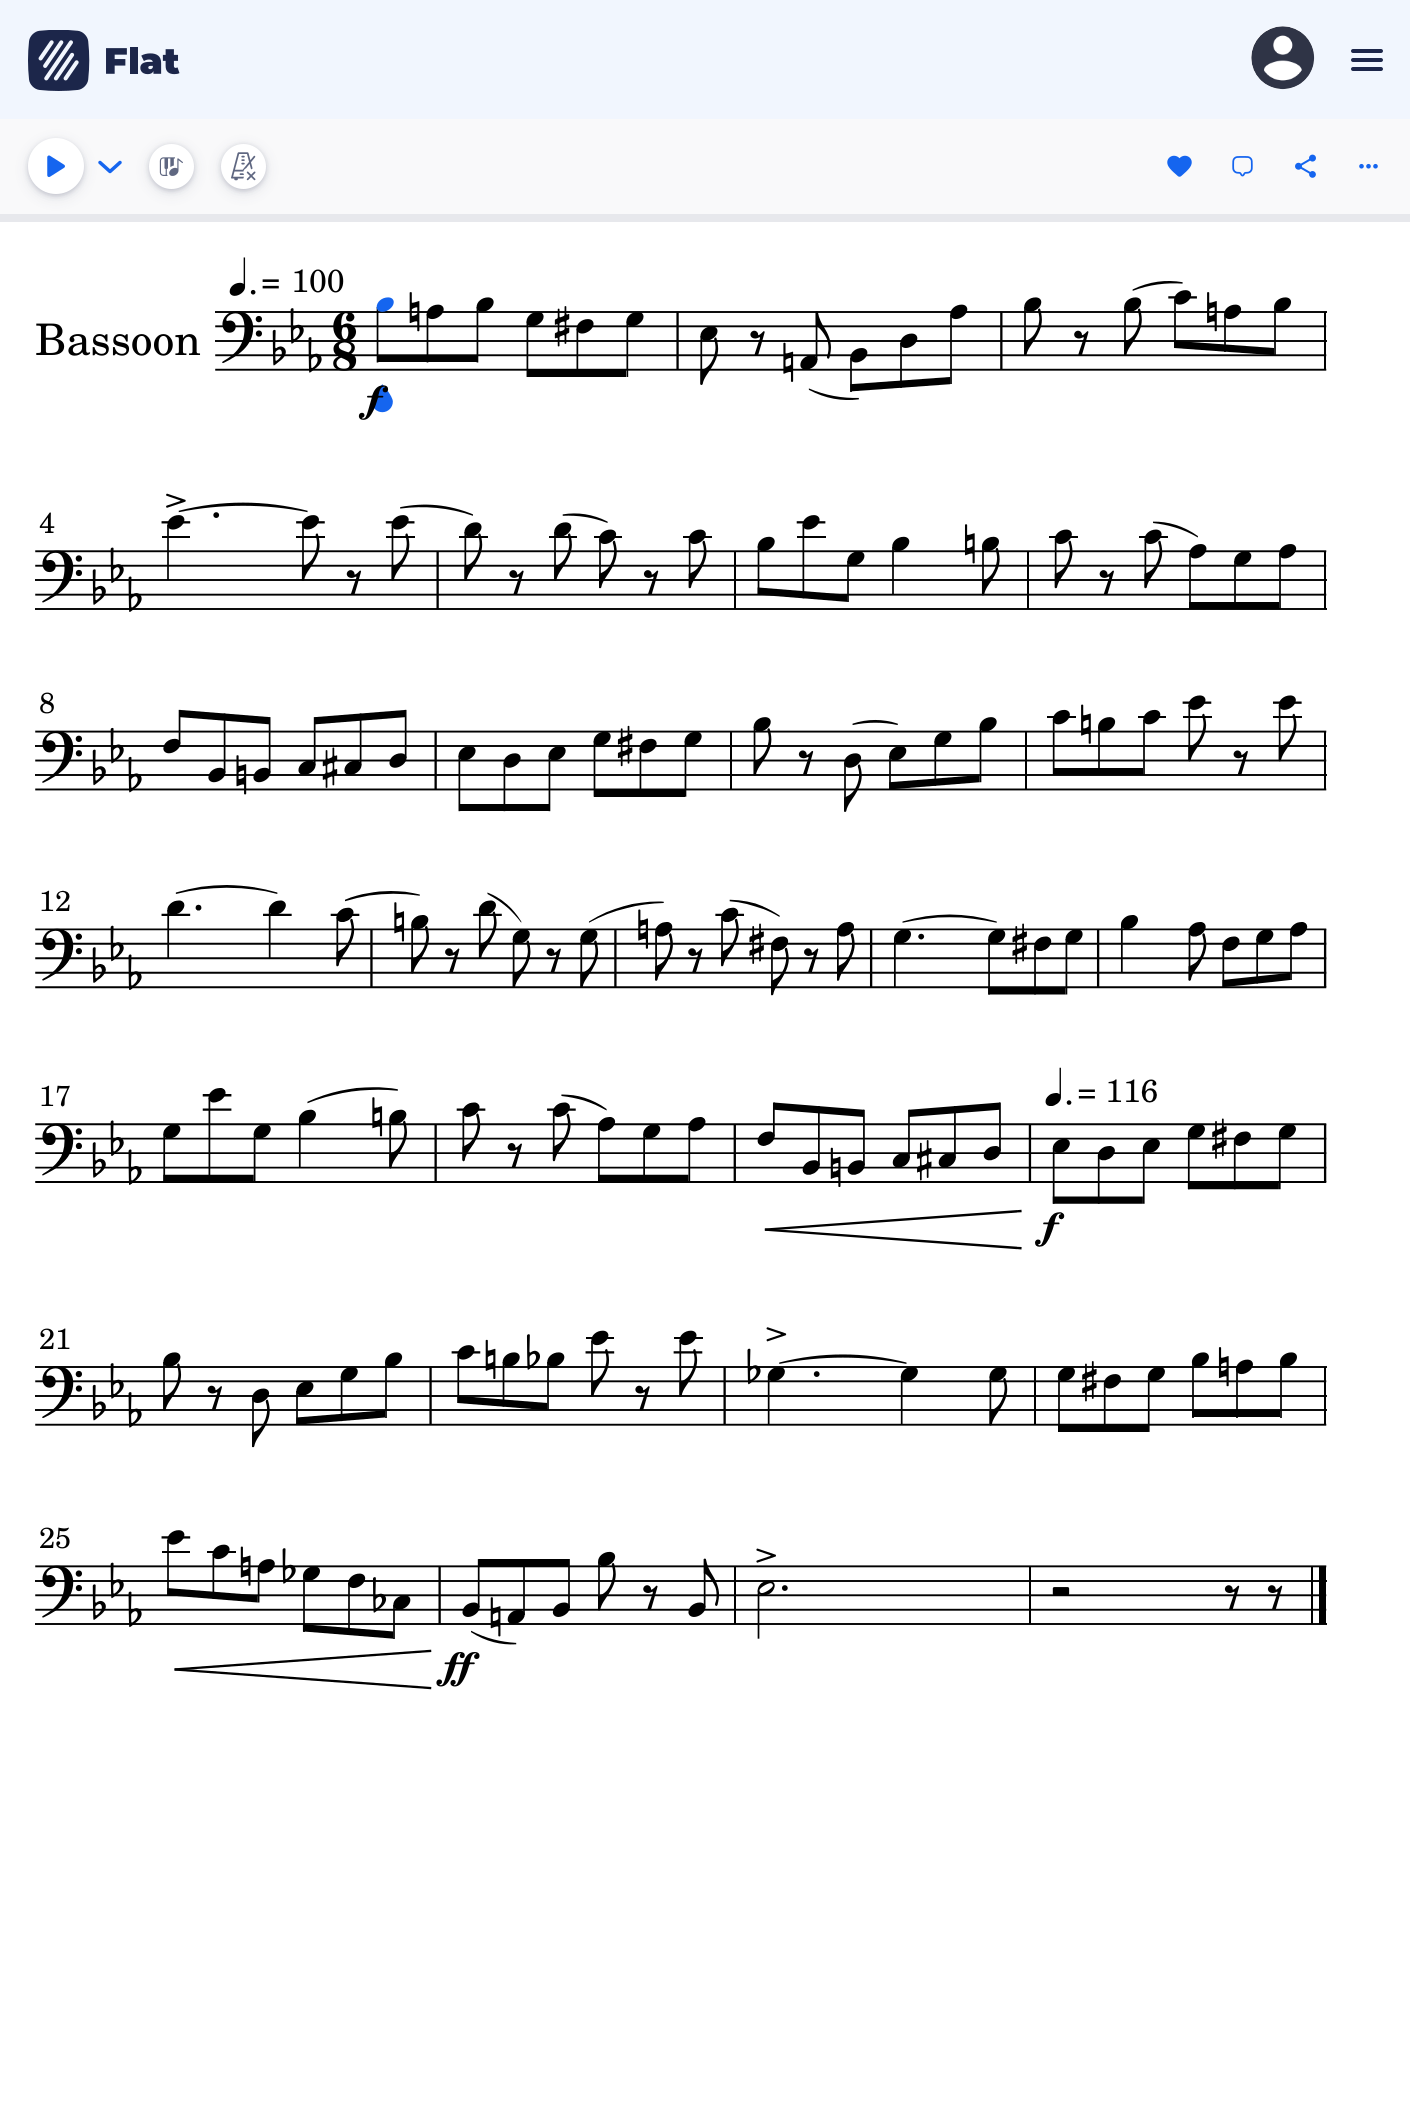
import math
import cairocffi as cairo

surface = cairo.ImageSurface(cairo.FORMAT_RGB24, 1410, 2127)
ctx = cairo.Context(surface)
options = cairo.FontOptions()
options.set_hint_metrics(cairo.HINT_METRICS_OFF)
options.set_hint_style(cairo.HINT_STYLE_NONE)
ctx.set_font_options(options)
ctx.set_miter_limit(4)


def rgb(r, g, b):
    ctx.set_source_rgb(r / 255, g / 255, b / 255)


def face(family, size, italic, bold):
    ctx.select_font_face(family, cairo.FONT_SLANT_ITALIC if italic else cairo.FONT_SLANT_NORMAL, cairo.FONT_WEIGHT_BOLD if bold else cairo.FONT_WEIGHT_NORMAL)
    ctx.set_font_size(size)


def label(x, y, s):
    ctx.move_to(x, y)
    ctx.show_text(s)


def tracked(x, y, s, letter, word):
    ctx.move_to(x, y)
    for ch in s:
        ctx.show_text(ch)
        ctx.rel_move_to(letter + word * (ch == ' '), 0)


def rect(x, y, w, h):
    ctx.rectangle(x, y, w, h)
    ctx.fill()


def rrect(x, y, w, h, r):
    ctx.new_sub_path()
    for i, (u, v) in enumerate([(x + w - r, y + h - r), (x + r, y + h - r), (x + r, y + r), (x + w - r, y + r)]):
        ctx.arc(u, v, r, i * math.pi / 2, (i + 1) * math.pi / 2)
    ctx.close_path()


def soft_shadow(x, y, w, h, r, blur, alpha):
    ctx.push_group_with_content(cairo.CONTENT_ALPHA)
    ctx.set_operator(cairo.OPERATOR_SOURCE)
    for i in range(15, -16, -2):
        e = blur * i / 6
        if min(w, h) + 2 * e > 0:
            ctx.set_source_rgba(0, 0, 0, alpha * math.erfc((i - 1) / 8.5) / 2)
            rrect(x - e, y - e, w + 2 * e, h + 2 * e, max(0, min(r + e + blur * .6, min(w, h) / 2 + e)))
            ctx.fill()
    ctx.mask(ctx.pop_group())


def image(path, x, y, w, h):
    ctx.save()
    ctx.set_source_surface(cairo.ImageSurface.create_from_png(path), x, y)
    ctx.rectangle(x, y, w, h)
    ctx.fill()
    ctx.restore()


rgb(255, 255, 255)
ctx.paint()
rgb(241, 246, 254)
rect(0, 0, 1410, 119)
image('image0.png', 28, 30, 152, 61)
rgb(255, 255, 255)
ctx.arc(1282.5, 57.5, 31.5, 0, 2 * math.pi)
ctx.fill()
image('image1.png', 1251, 26, 64, 64)
rgb(28, 38, 74)
rrect(1351, 49, 32, 4, 2)
ctx.fill()
rrect(1351, 58, 32, 4, 2)
ctx.fill()
rrect(1351, 67, 32, 4, 2)
ctx.fill()
rgb(249, 249, 250)
rect(0, 119, 1410, 95)
rgb(40, 48, 79)
soft_shadow(28, 140, 56, 56, 28, 2.5, 0.2)
soft_shadow(28, 142, 56, 56, 28, 7, 0.1)
rgb(255, 255, 255)
ctx.arc(56, 166, 28, 0, 2 * math.pi)
ctx.fill()
image('image2.png', 47, 155, 18, 22)
ctx.new_path()
ctx.move_to(100, 162.5)
ctx.line_to(110, 171.5)
ctx.line_to(120, 162.5)
rgb(21, 101, 239)
ctx.set_line_width(3.5)
ctx.set_line_cap(cairo.LINE_CAP_ROUND)
ctx.set_line_join(cairo.LINE_JOIN_ROUND)
ctx.stroke()
rgb(40, 48, 79)
soft_shadow(149, 145, 45, 46, 22.5, 2.5, 0.2)
soft_shadow(149, 147, 45, 46, 22.5, 7, 0.1)
rgb(255, 255, 255)
ctx.arc(171.5, 166.5, 22.5, 0, 2 * math.pi)
ctx.fill()
image('image3.png', 159, 157, 24, 19)
rgb(40, 48, 79)
soft_shadow(221, 145, 45, 46, 22.5, 2.5, 0.2)
soft_shadow(221, 147, 45, 46, 22.5, 7, 0.1)
rgb(255, 255, 255)
ctx.arc(243.5, 166.5, 22.5, 0, 2 * math.pi)
ctx.fill()
image('image4.png', 231, 152, 25, 29)
image('image5.png', 1167, 155, 25, 22)
image('image6.png', 1232, 156, 21, 21)
image('image7.png', 1295, 154, 21, 24)
image('image8.png', 1359, 163, 19, 6)
rgb(231, 232, 236)
rect(0, 214, 1410, 8)
image('image9.png', 215, 257, 1112, 163)
face('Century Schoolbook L', 32, 0, 0)
rgb(0, 0, 0)
tracked(261, 292, '= 100', 0, 2)
face('Century Schoolbook L', 43.5, 0, 0)
label(35, 355, 'Bassoon')
image('image10.png', 35, 493, 1292, 119)
face('Century Schoolbook L', 29, 0, 0)
label(39, 533, '4')
image('image11.png', 35, 695, 1292, 117)
label(39, 713, '8')
image('image12.png', 35, 885, 1292, 111)
image('image13.png', 35, 1067, 1292, 183)
image('image14.png', 35, 1327, 1292, 121)
label(39, 1349, '21')
image('image15.png', 35, 1530, 1292, 160)
label(39, 1548, '25')
surface.write_to_png('render.png')
